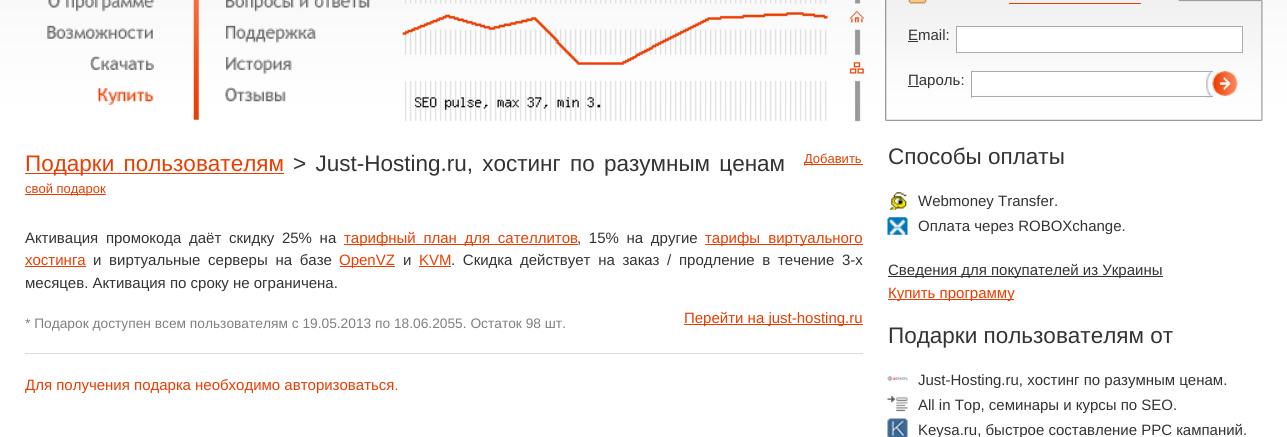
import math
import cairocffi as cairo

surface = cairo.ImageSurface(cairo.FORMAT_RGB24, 1287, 437)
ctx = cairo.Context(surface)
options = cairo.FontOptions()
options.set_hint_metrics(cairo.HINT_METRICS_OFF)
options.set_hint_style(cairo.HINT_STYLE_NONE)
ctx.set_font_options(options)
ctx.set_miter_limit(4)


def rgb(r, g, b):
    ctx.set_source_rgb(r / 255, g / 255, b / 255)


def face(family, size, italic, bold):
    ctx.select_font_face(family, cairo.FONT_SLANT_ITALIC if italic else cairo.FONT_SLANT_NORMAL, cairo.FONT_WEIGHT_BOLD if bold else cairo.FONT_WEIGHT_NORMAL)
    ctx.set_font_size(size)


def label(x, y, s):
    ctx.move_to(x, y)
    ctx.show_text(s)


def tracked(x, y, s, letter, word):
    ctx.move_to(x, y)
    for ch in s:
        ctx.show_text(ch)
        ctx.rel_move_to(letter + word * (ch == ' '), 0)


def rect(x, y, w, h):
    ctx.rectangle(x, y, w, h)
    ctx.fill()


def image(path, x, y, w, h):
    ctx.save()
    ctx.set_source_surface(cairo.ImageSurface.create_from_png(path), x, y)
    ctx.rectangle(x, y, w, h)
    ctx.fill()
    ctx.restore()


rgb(255, 255, 255)
ctx.paint()
image('image0.png', 0, 0, 1287, 145)
image('image19.png', 402, 12, 426, 98)
image('image1.png', 0, 0, 403, 121)
image('image2.png', 193, 0, 6, 120)
image('image3.png', 48, 0, 106, 12)
image('image4.png', 48, 0, 106, 12)
image('image5.png', 226, 0, 144, 12)
image('image6.png', 226, 0, 144, 12)
image('image7.png', 47, 25, 106, 15)
image('image8.png', 47, 25, 106, 14)
image('image9.png', 226, 25, 91, 18)
image('image10.png', 226, 25, 91, 18)
image('image11.png', 90, 56, 64, 14)
image('image12.png', 90, 56, 64, 14)
image('image13.png', 226, 57, 66, 17)
image('image14.png', 226, 57, 66, 17)
image('image15.png', 98, 88, 56, 17)
image('image16.png', 98, 88, 56, 17)
image('image17.png', 225, 87, 61, 15)
image('image18.png', 225, 87, 61, 15)
image('image20.png', 827, 0, 460, 121)
image('image21.png', 854, 0, 7, 122)
image('image22.png', 885, 0, 378, 121)
image('image23.png', 849, 10, 15, 13)
image('image24.png', 849, 62, 15, 12)
image('image25.png', 908, 0, 19, 4)
rgb(235, 61, 0)
rect(1009, 3, 132, 1)
face('Liberation Sans', 15, 0, 0)
rgb(51, 51, 51)
label(908, 40, 'Email:')
rect(908, 41, 10, 1)
rgb(255, 255, 255)
ctx.rectangle(956.5, 26.5, 286, 26)
ctx.fill_preserve()
rgb(165, 172, 178)
ctx.set_line_width(1)
ctx.stroke()
rgb(51, 51, 51)
rect(908, 86, 11, 1)
label(908, 85, 'Пароль:')
rgb(255, 255, 255)
rect(972, 72, 241, 20)
image('image26.png', 1206, 72, 7, 26)
rgb(165, 172, 178)
rect(971, 71, 242, 1)
rect(971, 96, 242, 1)
rect(971, 71, 1, 27)
image('image27.png', 1212, 71, 26, 25)
rgb(235, 61, 0)
rect(25, 173, 259, 1)
face('Liberation Sans', 22.5, 0, 0)
tracked(25, 171, 'Подарки пользователям', 0, 3)
rgb(51, 51, 51)
tracked(293, 171, '> Just-Hosting.ru, хостинг по разумным ценам', 0, 3)
rgb(235, 61, 0)
rect(804, 164, 59, 1)
face('Liberation Sans', 13, 0, 0)
label(804, 163, 'Добавить')
rect(25, 194, 81, 1)
label(25, 193, 'свой подарок')
face('Liberation Sans', 15, 0, 0)
rgb(51, 51, 51)
tracked(25, 243, 'Активация промокода даёт скидку 25% на', 0, 3.5)
rgb(235, 61, 0)
rect(344, 244, 234, 1)
tracked(344, 243, 'тарифный план для сателлитов', 0, 3.5)
rgb(51, 51, 51)
tracked(577, 243, ', 15% на другие', 0, 3.5)
rgb(235, 61, 0)
rect(705, 244, 158, 1)
tracked(705, 243, 'тарифы виртуального', 0, 4)
label(25, 265, 'хостинга')
rect(25, 266, 61, 1)
rgb(51, 51, 51)
tracked(93, 265, 'и виртуальные серверы на базе', 0, 3.5)
rgb(235, 61, 0)
rect(340, 266, 55, 1)
label(339, 265, 'OpenVZ')
rgb(51, 51, 51)
label(403, 265, 'и')
rgb(235, 61, 0)
label(419, 265, 'KVM')
rect(419, 266, 32, 1)
rgb(51, 51, 51)
tracked(451, 265, '. Скидка действует на заказ / продление в течение 3-х', 0, 3.5)
label(25, 288, 'месяцев. Активация по сроку не ограничена.')
face('Liberation Sans', 13.75, 0, 0)
rgb(128, 128, 128)
label(25, 328, '* Подарок доступен всем пользователям с 19.05.2013 по 18.06.2055. Остаток 98 шт.')
rgb(235, 61, 0)
rect(684, 324, 179, 1)
face('Liberation Sans', 15, 0, 0)
label(684, 323, 'Перейти на just-hosting.ru')
rgb(221, 221, 221)
rect(25, 353, 838, 1)
rgb(235, 61, 0)
label(25, 390, 'Для получения подарка необходимо авторизоваться.')
face('Liberation Sans', 22.5, 0, 0)
rgb(51, 51, 51)
label(888, 164, 'Способы оплаты')
image('image28.png', 889, 192, 18, 18)
face('Liberation Sans', 15, 0, 0)
label(918, 206, 'Webmoney Transfer.')
image('image29.png', 887, 217, 21, 18)
label(918, 231, 'Оплата через ROBOXchange.')
rect(888, 276, 275, 1)
label(888, 275, 'Сведения для покупателей из Украины')
rgb(235, 61, 0)
rect(888, 299, 126, 1)
label(888, 298, 'Купить программу')
face('Liberation Sans', 22.5, 0, 0)
rgb(51, 51, 51)
label(888, 343, 'Подарки пользователям от')
image('image30.png', 887, 375, 21, 7)
face('Liberation Sans', 15, 0, 0)
label(918, 385, 'Just-Hosting.ru, хостинг по разумным ценам.')
image('image31.png', 887, 395, 21, 17)
label(918, 410, 'All in Top, семинары и курсы по SEO.')
image('image32.png', 887, 418, 21, 19)
label(918, 435, 'Keysa.ru, быстрое составление PPC кампаний.')
surface.write_to_png('render.png')
